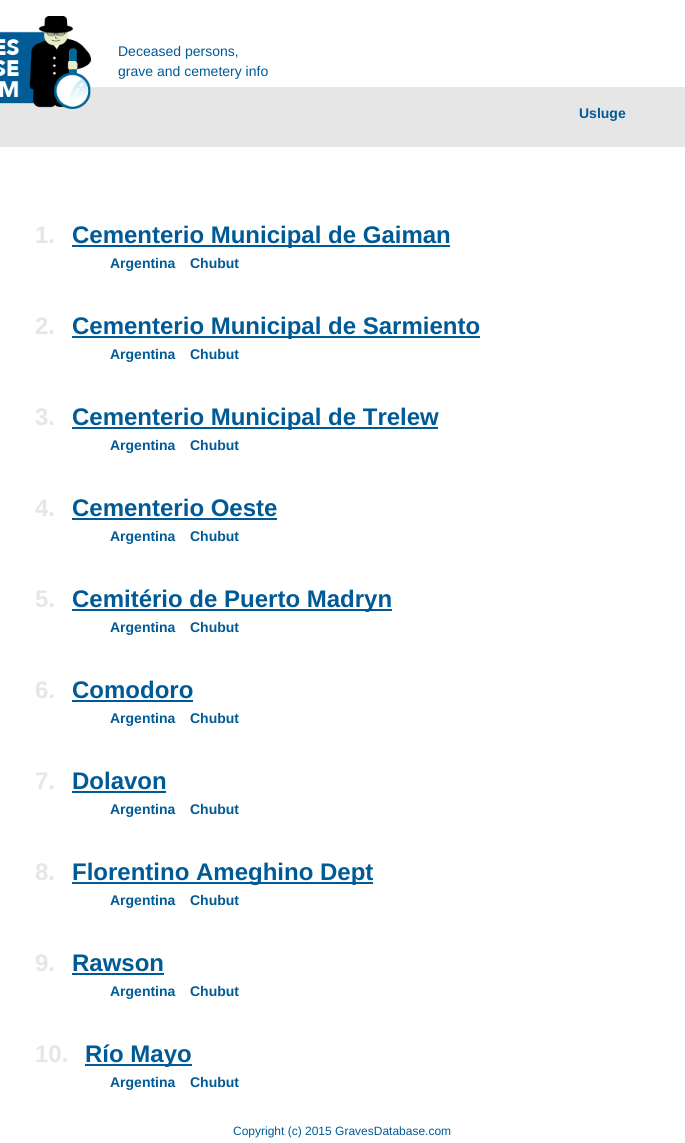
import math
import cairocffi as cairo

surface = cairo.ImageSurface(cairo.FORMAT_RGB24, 685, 1143)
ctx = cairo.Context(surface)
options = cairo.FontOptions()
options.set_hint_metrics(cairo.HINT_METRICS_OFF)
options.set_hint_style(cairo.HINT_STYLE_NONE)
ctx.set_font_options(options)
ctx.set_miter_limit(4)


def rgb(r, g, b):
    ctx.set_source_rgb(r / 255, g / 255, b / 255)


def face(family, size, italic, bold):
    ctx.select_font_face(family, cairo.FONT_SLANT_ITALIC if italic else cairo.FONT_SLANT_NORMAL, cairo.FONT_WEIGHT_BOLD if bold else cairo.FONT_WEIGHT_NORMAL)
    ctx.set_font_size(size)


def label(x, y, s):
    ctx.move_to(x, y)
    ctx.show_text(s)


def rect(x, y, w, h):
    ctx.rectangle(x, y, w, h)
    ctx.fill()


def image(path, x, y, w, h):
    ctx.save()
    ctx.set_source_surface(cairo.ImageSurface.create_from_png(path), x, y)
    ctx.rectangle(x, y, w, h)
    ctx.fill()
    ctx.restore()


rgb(255, 255, 255)
ctx.paint()
rgb(230, 230, 230)
rect(0, 87, 685, 60)
image('image0.png', 0, 16, 91, 93)
face('Liberation Sans', 14, 0, 0)
rgb(0, 90, 150)
label(118, 56, 'Deceased persons,')
label(118, 76, 'grave and cemetery info')
face('Liberation Sans', 14, 0, 1)
label(579, 118, 'Usluge')
face('Liberation Sans', 24, 0, 1)
rgb(230, 230, 230)
label(35, 243, '1.')
rgb(0, 90, 150)
rect(72, 245, 378, 2)
label(72, 243, 'Cementerio Municipal de Gaiman')
face('Liberation Sans', 14, 0, 1)
label(110, 268, 'Argentina')
label(190, 268, 'Chubut')
face('Liberation Sans', 24, 0, 1)
rgb(230, 230, 230)
label(35, 334, '2.')
rgb(0, 90, 150)
rect(72, 336, 408, 2)
label(72, 334, 'Cementerio Municipal de Sarmiento')
face('Liberation Sans', 14, 0, 1)
label(110, 359, 'Argentina')
label(190, 359, 'Chubut')
face('Liberation Sans', 24, 0, 1)
rgb(230, 230, 230)
label(35, 425, '3.')
rgb(0, 90, 150)
rect(72, 427, 366, 2)
label(72, 425, 'Cementerio Municipal de Trelew')
face('Liberation Sans', 14, 0, 1)
label(110, 450, 'Argentina')
label(190, 450, 'Chubut')
face('Liberation Sans', 24, 0, 1)
rgb(230, 230, 230)
label(35, 516, '4.')
rgb(0, 90, 150)
label(72, 516, 'Cementerio Oeste')
rect(72, 518, 205, 2)
face('Liberation Sans', 14, 0, 1)
label(110, 541, 'Argentina')
label(190, 541, 'Chubut')
face('Liberation Sans', 24, 0, 1)
rgb(230, 230, 230)
label(35, 607, '5.')
rgb(0, 90, 150)
rect(72, 609, 320, 2)
label(72, 607, 'Cemitério de Puerto Madryn')
face('Liberation Sans', 14, 0, 1)
label(110, 632, 'Argentina')
label(190, 632, 'Chubut')
face('Liberation Sans', 24, 0, 1)
rgb(230, 230, 230)
label(35, 698, '6.')
rgb(0, 90, 150)
label(72, 698, 'Comodoro')
rect(72, 700, 121, 2)
face('Liberation Sans', 14, 0, 1)
label(110, 723, 'Argentina')
label(190, 723, 'Chubut')
face('Liberation Sans', 24, 0, 1)
rgb(230, 230, 230)
label(35, 789, '7.')
rgb(0, 90, 150)
label(72, 789, 'Dolavon')
rect(72, 791, 94, 2)
face('Liberation Sans', 14, 0, 1)
label(110, 814, 'Argentina')
label(190, 814, 'Chubut')
face('Liberation Sans', 24, 0, 1)
rgb(230, 230, 230)
label(35, 880, '8.')
rgb(0, 90, 150)
rect(72, 882, 301, 2)
label(72, 880, 'Florentino Ameghino Dept')
face('Liberation Sans', 14, 0, 1)
label(110, 905, 'Argentina')
label(190, 905, 'Chubut')
face('Liberation Sans', 24, 0, 1)
rgb(230, 230, 230)
label(35, 971, '9.')
rgb(0, 90, 150)
label(72, 971, 'Rawson')
rect(72, 973, 92, 2)
face('Liberation Sans', 14, 0, 1)
label(110, 996, 'Argentina')
label(190, 996, 'Chubut')
face('Liberation Sans', 24, 0, 1)
rgb(230, 230, 230)
label(35, 1062, '10.')
rgb(0, 90, 150)
rect(85, 1064, 107, 2)
label(85, 1062, 'Río Mayo')
face('Liberation Sans', 14, 0, 1)
label(110, 1087, 'Argentina')
label(190, 1087, 'Chubut')
face('Liberation Sans', 12, 0, 0)
label(233, 1135, 'Copyright (c) 2015 GravesDatabase.com')
surface.write_to_png('render.png')
